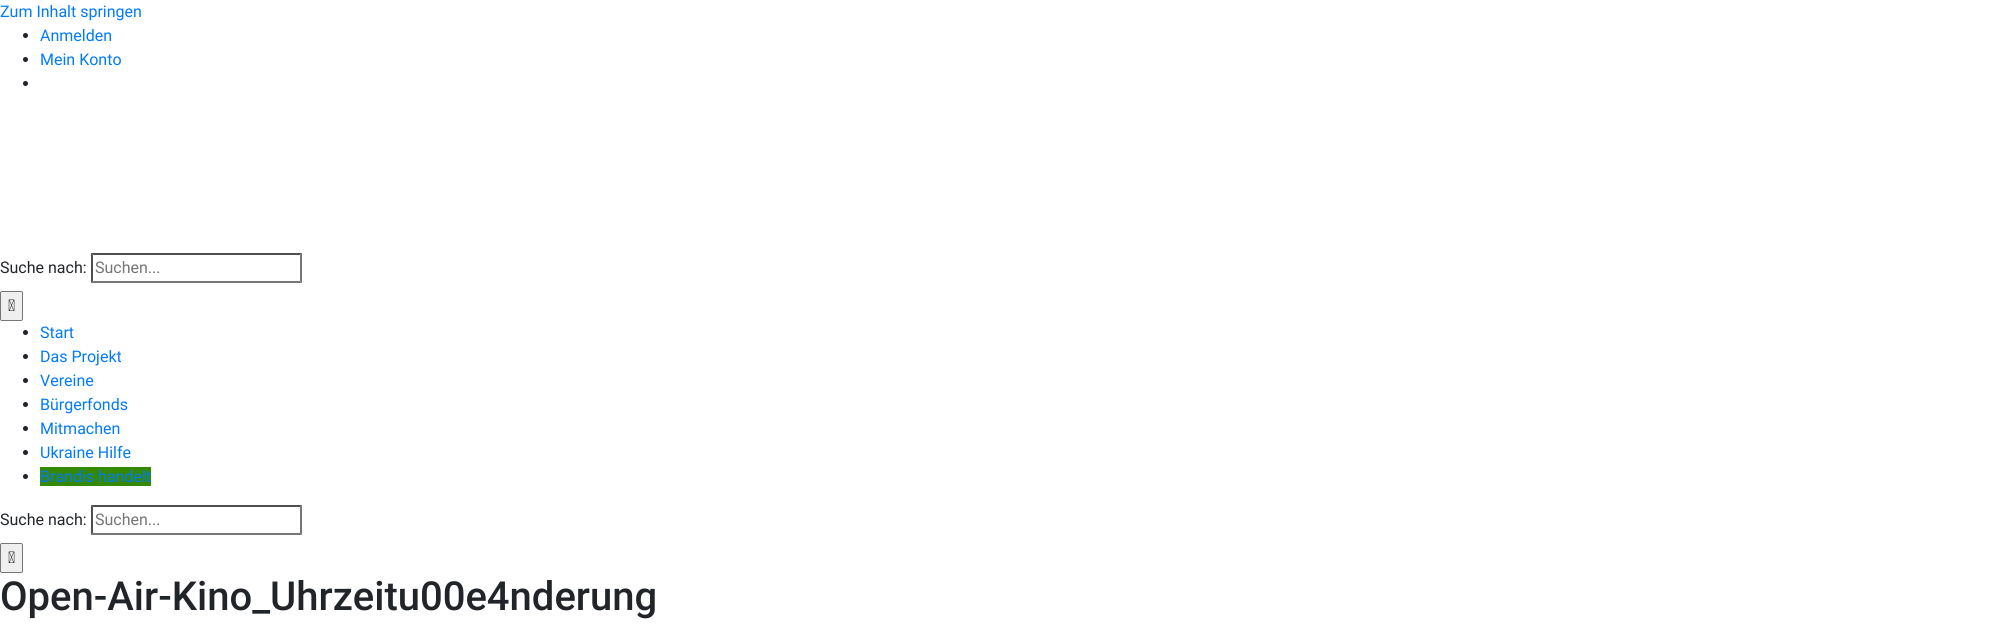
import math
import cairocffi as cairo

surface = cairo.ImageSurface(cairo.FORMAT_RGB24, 2006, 631)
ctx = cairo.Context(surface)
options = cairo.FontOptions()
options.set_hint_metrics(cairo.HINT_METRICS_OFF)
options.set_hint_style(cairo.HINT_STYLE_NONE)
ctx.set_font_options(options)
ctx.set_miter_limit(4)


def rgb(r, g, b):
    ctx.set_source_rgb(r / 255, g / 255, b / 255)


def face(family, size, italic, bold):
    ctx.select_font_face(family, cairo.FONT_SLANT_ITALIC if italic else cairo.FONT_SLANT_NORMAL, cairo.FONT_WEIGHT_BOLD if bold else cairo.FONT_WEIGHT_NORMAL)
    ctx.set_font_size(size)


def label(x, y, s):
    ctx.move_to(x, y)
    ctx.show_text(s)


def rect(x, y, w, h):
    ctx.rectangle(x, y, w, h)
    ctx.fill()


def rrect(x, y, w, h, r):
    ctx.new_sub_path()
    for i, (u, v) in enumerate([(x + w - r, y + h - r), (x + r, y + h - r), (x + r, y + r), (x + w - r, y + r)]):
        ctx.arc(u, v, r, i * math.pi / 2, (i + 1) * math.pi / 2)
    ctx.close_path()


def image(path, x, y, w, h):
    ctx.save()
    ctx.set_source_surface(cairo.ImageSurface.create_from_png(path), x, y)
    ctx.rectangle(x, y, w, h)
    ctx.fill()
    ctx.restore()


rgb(255, 255, 255)
ctx.paint()
face('Roboto', 16, 0, 0)
rgb(0, 123, 255)
label(0, 17, 'Zum Inhalt springen')
rgb(33, 37, 41)
ctx.new_path()
ctx.arc(25.5, 35.5, 2.5, 0, 2 * math.pi)
ctx.fill()
rgb(0, 123, 255)
label(40, 41, 'Anmelden')
rgb(33, 37, 41)
ctx.new_path()
ctx.arc(25.5, 59.5, 2.5, 0, 2 * math.pi)
ctx.fill()
rgb(0, 123, 255)
label(40, 65, 'Mein Konto')
rgb(33, 37, 41)
ctx.new_path()
ctx.arc(25.5, 83.5, 2.5, 0, 2 * math.pi)
ctx.fill()
label(0, 273, 'Suche nach:')
rgb(79, 79, 79)
ctx.new_path()
ctx.move_to(91, 253)
ctx.line_to(302, 253)
ctx.line_to(300, 255)
ctx.line_to(93, 255)
ctx.close_path()
ctx.fill()
rgb(118, 118, 118)
ctx.new_path()
ctx.move_to(302, 253)
ctx.line_to(302, 283)
ctx.line_to(300, 281)
ctx.line_to(300, 255)
ctx.close_path()
ctx.fill()
ctx.new_path()
ctx.move_to(302, 283)
ctx.line_to(91, 283)
ctx.line_to(93, 281)
ctx.line_to(300, 281)
ctx.close_path()
ctx.fill()
rgb(79, 79, 79)
ctx.new_path()
ctx.move_to(91, 283)
ctx.line_to(91, 253)
ctx.line_to(93, 255)
ctx.line_to(93, 281)
ctx.close_path()
ctx.fill()
rgb(117, 117, 117)
label(95, 273, 'Suchen...')
rgb(239, 239, 239)
rrect(0.5, 291.5, 22, 29, 1.5)
ctx.fill_preserve()
rgb(118, 118, 118)
ctx.set_line_width(1)
ctx.stroke()
image('image0.png', 8, 299, 7, 12)
rgb(33, 37, 41)
ctx.arc(25.5, 332.5, 2.5, 0, 2 * math.pi)
ctx.fill()
rgb(0, 123, 255)
label(40, 338, 'Start')
rgb(33, 37, 41)
ctx.new_path()
ctx.arc(25.5, 356.5, 2.5, 0, 2 * math.pi)
ctx.fill()
rgb(0, 123, 255)
label(40, 362, 'Das Projekt')
rgb(33, 37, 41)
ctx.new_path()
ctx.arc(25.5, 380.5, 2.5, 0, 2 * math.pi)
ctx.fill()
rgb(0, 123, 255)
label(40, 386, 'Vereine')
rgb(33, 37, 41)
ctx.new_path()
ctx.arc(25.5, 404.5, 2.5, 0, 2 * math.pi)
ctx.fill()
rgb(0, 123, 255)
label(40, 410, 'Bürgerfonds')
rgb(33, 37, 41)
ctx.new_path()
ctx.arc(25.5, 428.5, 2.5, 0, 2 * math.pi)
ctx.fill()
rgb(0, 123, 255)
label(40, 434, 'Mitmachen')
rgb(33, 37, 41)
ctx.new_path()
ctx.arc(25.5, 452.5, 2.5, 0, 2 * math.pi)
ctx.fill()
rgb(0, 123, 255)
label(40, 458, 'Ukraine Hilfe')
rgb(33, 37, 41)
ctx.new_path()
ctx.arc(25.5, 476.5, 2.5, 0, 2 * math.pi)
ctx.fill()
rgb(52, 137, 0)
rect(40, 467, 111, 19)
rgb(0, 123, 255)
label(40, 482, 'Brandis handelt')
rgb(33, 37, 41)
label(0, 525, 'Suche nach:')
rgb(79, 79, 79)
ctx.new_path()
ctx.move_to(91, 505)
ctx.line_to(302, 505)
ctx.line_to(300, 507)
ctx.line_to(93, 507)
ctx.close_path()
ctx.fill()
rgb(118, 118, 118)
ctx.new_path()
ctx.move_to(302, 505)
ctx.line_to(302, 535)
ctx.line_to(300, 533)
ctx.line_to(300, 507)
ctx.close_path()
ctx.fill()
ctx.new_path()
ctx.move_to(302, 535)
ctx.line_to(91, 535)
ctx.line_to(93, 533)
ctx.line_to(300, 533)
ctx.close_path()
ctx.fill()
rgb(79, 79, 79)
ctx.new_path()
ctx.move_to(91, 535)
ctx.line_to(91, 505)
ctx.line_to(93, 507)
ctx.line_to(93, 533)
ctx.close_path()
ctx.fill()
rgb(117, 117, 117)
label(95, 525, 'Suchen...')
rgb(239, 239, 239)
rrect(0.5, 543.5, 22, 29, 1.5)
ctx.fill_preserve()
rgb(118, 118, 118)
ctx.stroke()
image('image0.png', 8, 551, 7, 12)
face('Roboto Medium', 40, 0, 0)
rgb(33, 37, 41)
label(0, 610, 'Open-Air-Kino_Uhrzeitu00e4nderung')
surface.write_to_png('render.png')
